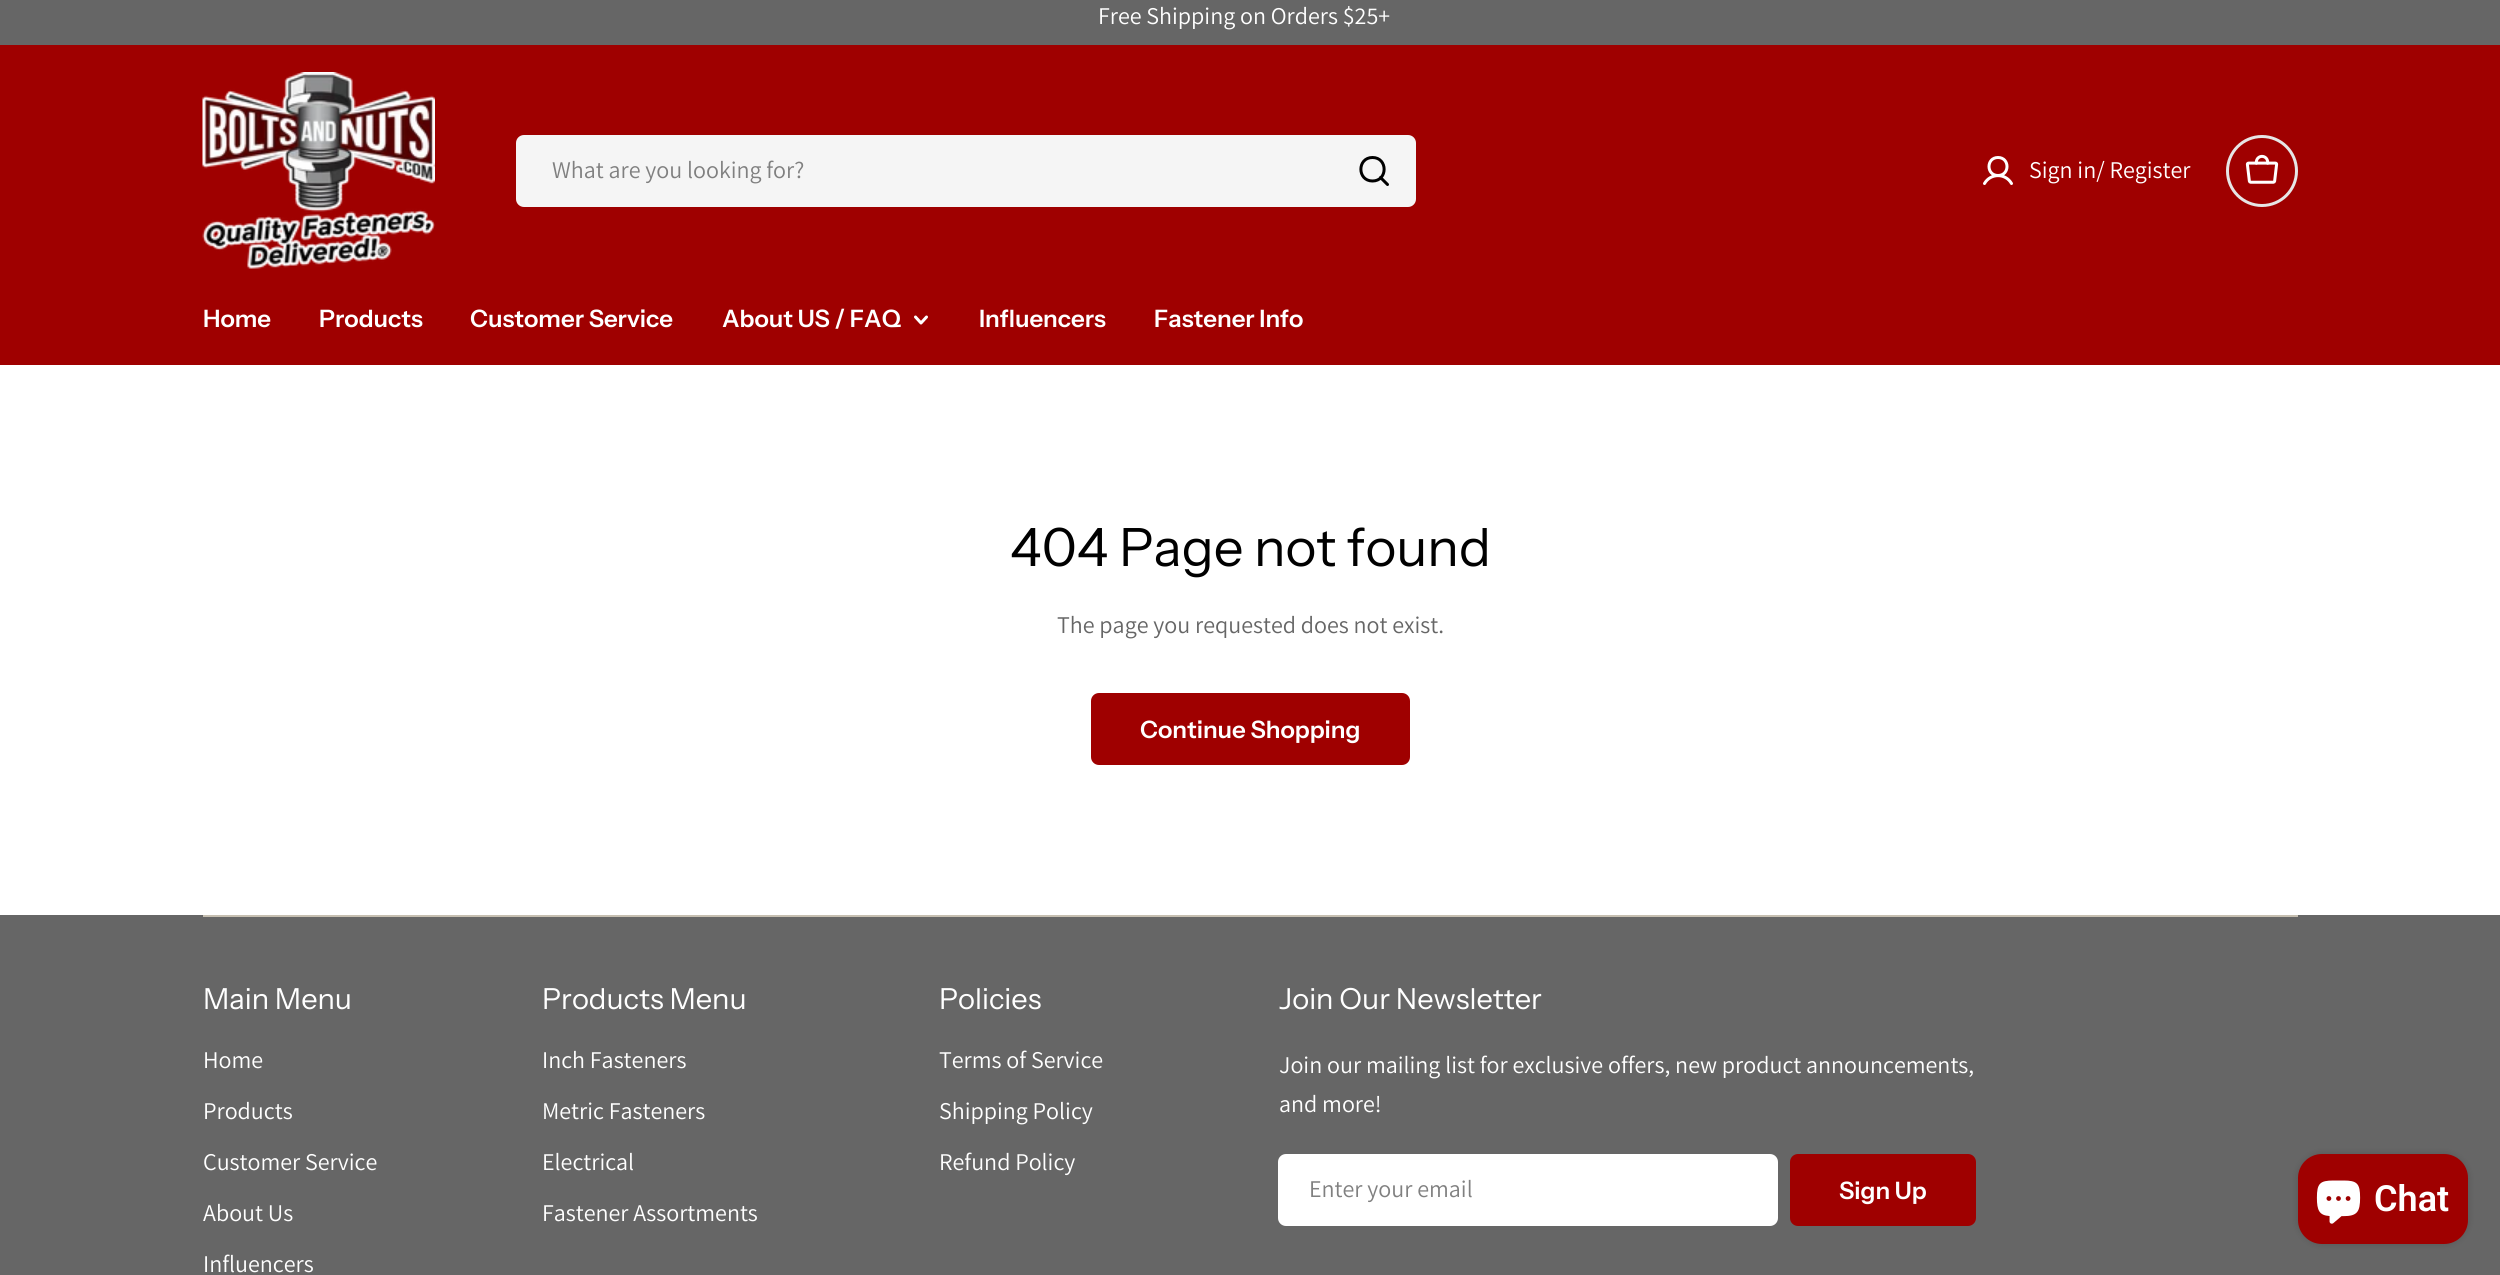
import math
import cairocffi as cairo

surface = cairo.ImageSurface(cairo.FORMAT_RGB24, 2500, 1275)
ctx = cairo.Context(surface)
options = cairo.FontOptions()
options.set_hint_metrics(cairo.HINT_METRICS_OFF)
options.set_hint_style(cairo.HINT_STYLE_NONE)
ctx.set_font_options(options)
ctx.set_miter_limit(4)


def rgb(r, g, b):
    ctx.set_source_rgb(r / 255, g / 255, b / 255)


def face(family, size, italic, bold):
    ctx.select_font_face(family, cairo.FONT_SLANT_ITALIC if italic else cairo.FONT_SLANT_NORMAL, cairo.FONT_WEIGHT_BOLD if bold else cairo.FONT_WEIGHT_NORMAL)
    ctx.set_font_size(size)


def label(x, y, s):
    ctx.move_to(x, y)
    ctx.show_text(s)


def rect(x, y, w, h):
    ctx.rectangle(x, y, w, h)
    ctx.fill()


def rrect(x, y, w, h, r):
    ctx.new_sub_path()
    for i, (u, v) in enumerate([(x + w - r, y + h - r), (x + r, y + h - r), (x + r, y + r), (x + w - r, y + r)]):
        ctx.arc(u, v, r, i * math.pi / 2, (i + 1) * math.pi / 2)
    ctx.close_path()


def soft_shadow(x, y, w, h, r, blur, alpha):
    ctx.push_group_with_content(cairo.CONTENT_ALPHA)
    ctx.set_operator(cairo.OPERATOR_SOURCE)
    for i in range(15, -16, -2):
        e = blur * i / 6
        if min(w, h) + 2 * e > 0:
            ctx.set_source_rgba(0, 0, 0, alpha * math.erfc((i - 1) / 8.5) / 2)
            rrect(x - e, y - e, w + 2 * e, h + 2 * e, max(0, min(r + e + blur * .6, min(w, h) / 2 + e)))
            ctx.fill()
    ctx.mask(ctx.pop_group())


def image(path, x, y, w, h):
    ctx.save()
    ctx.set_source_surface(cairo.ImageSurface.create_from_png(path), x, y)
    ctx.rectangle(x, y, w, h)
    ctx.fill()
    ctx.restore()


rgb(255, 255, 255)
ctx.paint()
rgb(102, 102, 102)
rect(0, 0, 2500, 45)
face('Assistant', 24, 0, 0)
rgb(255, 255, 255)
label(1098, 24, 'Free Shipping on Orders $25+')
rgb(159, 0, 0)
rect(0, 45, 2500, 320)
image('image0.png', 202, 72, 233, 197)
rgb(245, 245, 245)
rrect(516, 135, 900, 72, 8)
ctx.fill()
rgb(128, 128, 128)
label(552, 178, 'What are you looking for?')
ctx.new_path()
ctx.move_to(1372.5, 181)
ctx.curve_to(1388, 181, 1388, 157.5, 1372.5, 157.5)
ctx.curve_to(1357, 157.5, 1357, 181, 1372.5, 181)
ctx.close_path()
ctx.move_to(1380.5, 177.5)
ctx.line_to(1387.5, 184.5)
rgb(0, 0, 0)
ctx.set_line_width(3)
ctx.set_line_cap(cairo.LINE_CAP_ROUND)
ctx.set_line_join(cairo.LINE_JOIN_ROUND)
ctx.stroke()
ctx.new_path()
ctx.move_to(1998, 175.5)
ctx.curve_to(2010, 175.5, 2010, 157.5, 1998, 157.5)
ctx.curve_to(1986, 157.5, 1986, 175.5, 1998, 175.5)
ctx.close_path()
ctx.move_to(1984.5, 183.5)
ctx.curve_to(1990.5, 173, 2005.5, 173, 2011.5, 183.5)
rgb(255, 255, 255)
ctx.stroke()
label(2029, 178, 'Sign in/ Register')
ctx.new_path()
ctx.arc(2262, 171, 34.5, 0, 2 * math.pi)
rgb(230, 230, 230)
ctx.set_line_cap(cairo.LINE_CAP_BUTT)
ctx.set_line_join(cairo.LINE_JOIN_MITER)
ctx.stroke()
image('image1.png', 2245, 154, 34, 30)
face('Instrument Sans SemiBold', 24, 0, 0)
rgb(255, 255, 255)
label(203, 327, 'Home')
label(319, 327, 'Products')
label(470, 327, 'Customer Service')
label(722, 327, 'About US / FAQ')
ctx.new_path()
ctx.move_to(926.5, 317)
ctx.line_to(921, 323)
ctx.line_to(915.5, 317)
ctx.set_line_cap(cairo.LINE_CAP_ROUND)
ctx.set_line_join(cairo.LINE_JOIN_ROUND)
ctx.stroke()
label(979, 327, 'Influencers')
label(1154, 327, 'Fastener Info')
face('Instrument Sans', 52.75, 0, 0)
rgb(0, 0, 0)
label(1010, 566, '404 Page not found')
face('Assistant', 24, 0, 0)
rgb(102, 102, 102)
label(1057, 633, 'The page you requested does not exist.')
rgb(159, 0, 0)
rrect(1092, 694, 317, 70, 7)
ctx.fill_preserve()
ctx.set_line_width(2)
ctx.set_line_cap(cairo.LINE_CAP_BUTT)
ctx.set_line_join(cairo.LINE_JOIN_MITER)
ctx.stroke()
face('Instrument Sans SemiBold', 24, 0, 0)
rgb(255, 255, 255)
label(1140, 738, 'Continue Shopping')
rgb(102, 102, 102)
rect(0, 915, 2500, 360)
rgb(198, 191, 177)
rect(203, 915, 2095, 2)
face('Instrument Sans', 29, 0, 0)
rgb(255, 255, 255)
label(203, 1009, 'Main Menu')
face('Assistant', 24, 0, 0)
label(203, 1068, 'Home')
label(203, 1119, 'Products')
label(203, 1170, 'Customer Service')
label(203, 1221, 'About Us')
label(203, 1272, 'Influencers')
face('Instrument Sans', 29, 0, 0)
label(542, 1009, 'Products Menu')
face('Assistant', 24, 0, 0)
label(542, 1068, 'Inch Fasteners')
label(542, 1119, 'Metric Fasteners')
label(542, 1170, 'Electrical')
label(542, 1221, 'Fastener Assortments')
face('Instrument Sans', 29, 0, 0)
label(939, 1009, 'Policies')
face('Assistant', 24, 0, 0)
label(939, 1068, 'Terms of Service')
label(939, 1119, 'Shipping Policy')
label(939, 1170, 'Refund Policy')
face('Instrument Sans', 29, 0, 0)
label(1279, 1009, 'Join Our Newsletter')
face('Assistant', 24, 0, 0)
label(1279, 1073, 'Join our mailing list for exclusive offers, new product announcements,')
label(1279, 1112, 'and more!')
rrect(1278, 1154, 500, 72, 8)
ctx.fill()
rgb(128, 128, 128)
label(1309, 1197, 'Enter your email')
rgb(159, 0, 0)
rrect(1791, 1155, 184, 70, 7)
ctx.fill_preserve()
ctx.stroke()
face('Instrument Sans SemiBold', 24, 0, 0)
rgb(255, 255, 255)
label(1839, 1199, 'Sign Up')
rgb(0, 0, 0)
soft_shadow(2298, 1154, 170, 90, 24, 4, 0.15)
rgb(159, 0, 0)
rrect(2298, 1154, 170, 90, 24)
ctx.fill()
image('image2.png', 2316, 1180, 45, 44)
face('Roboto SemiBold', 36, 0, 0)
rgb(255, 255, 255)
label(2374, 1211, 'Chat')
surface.write_to_png('render.png')
